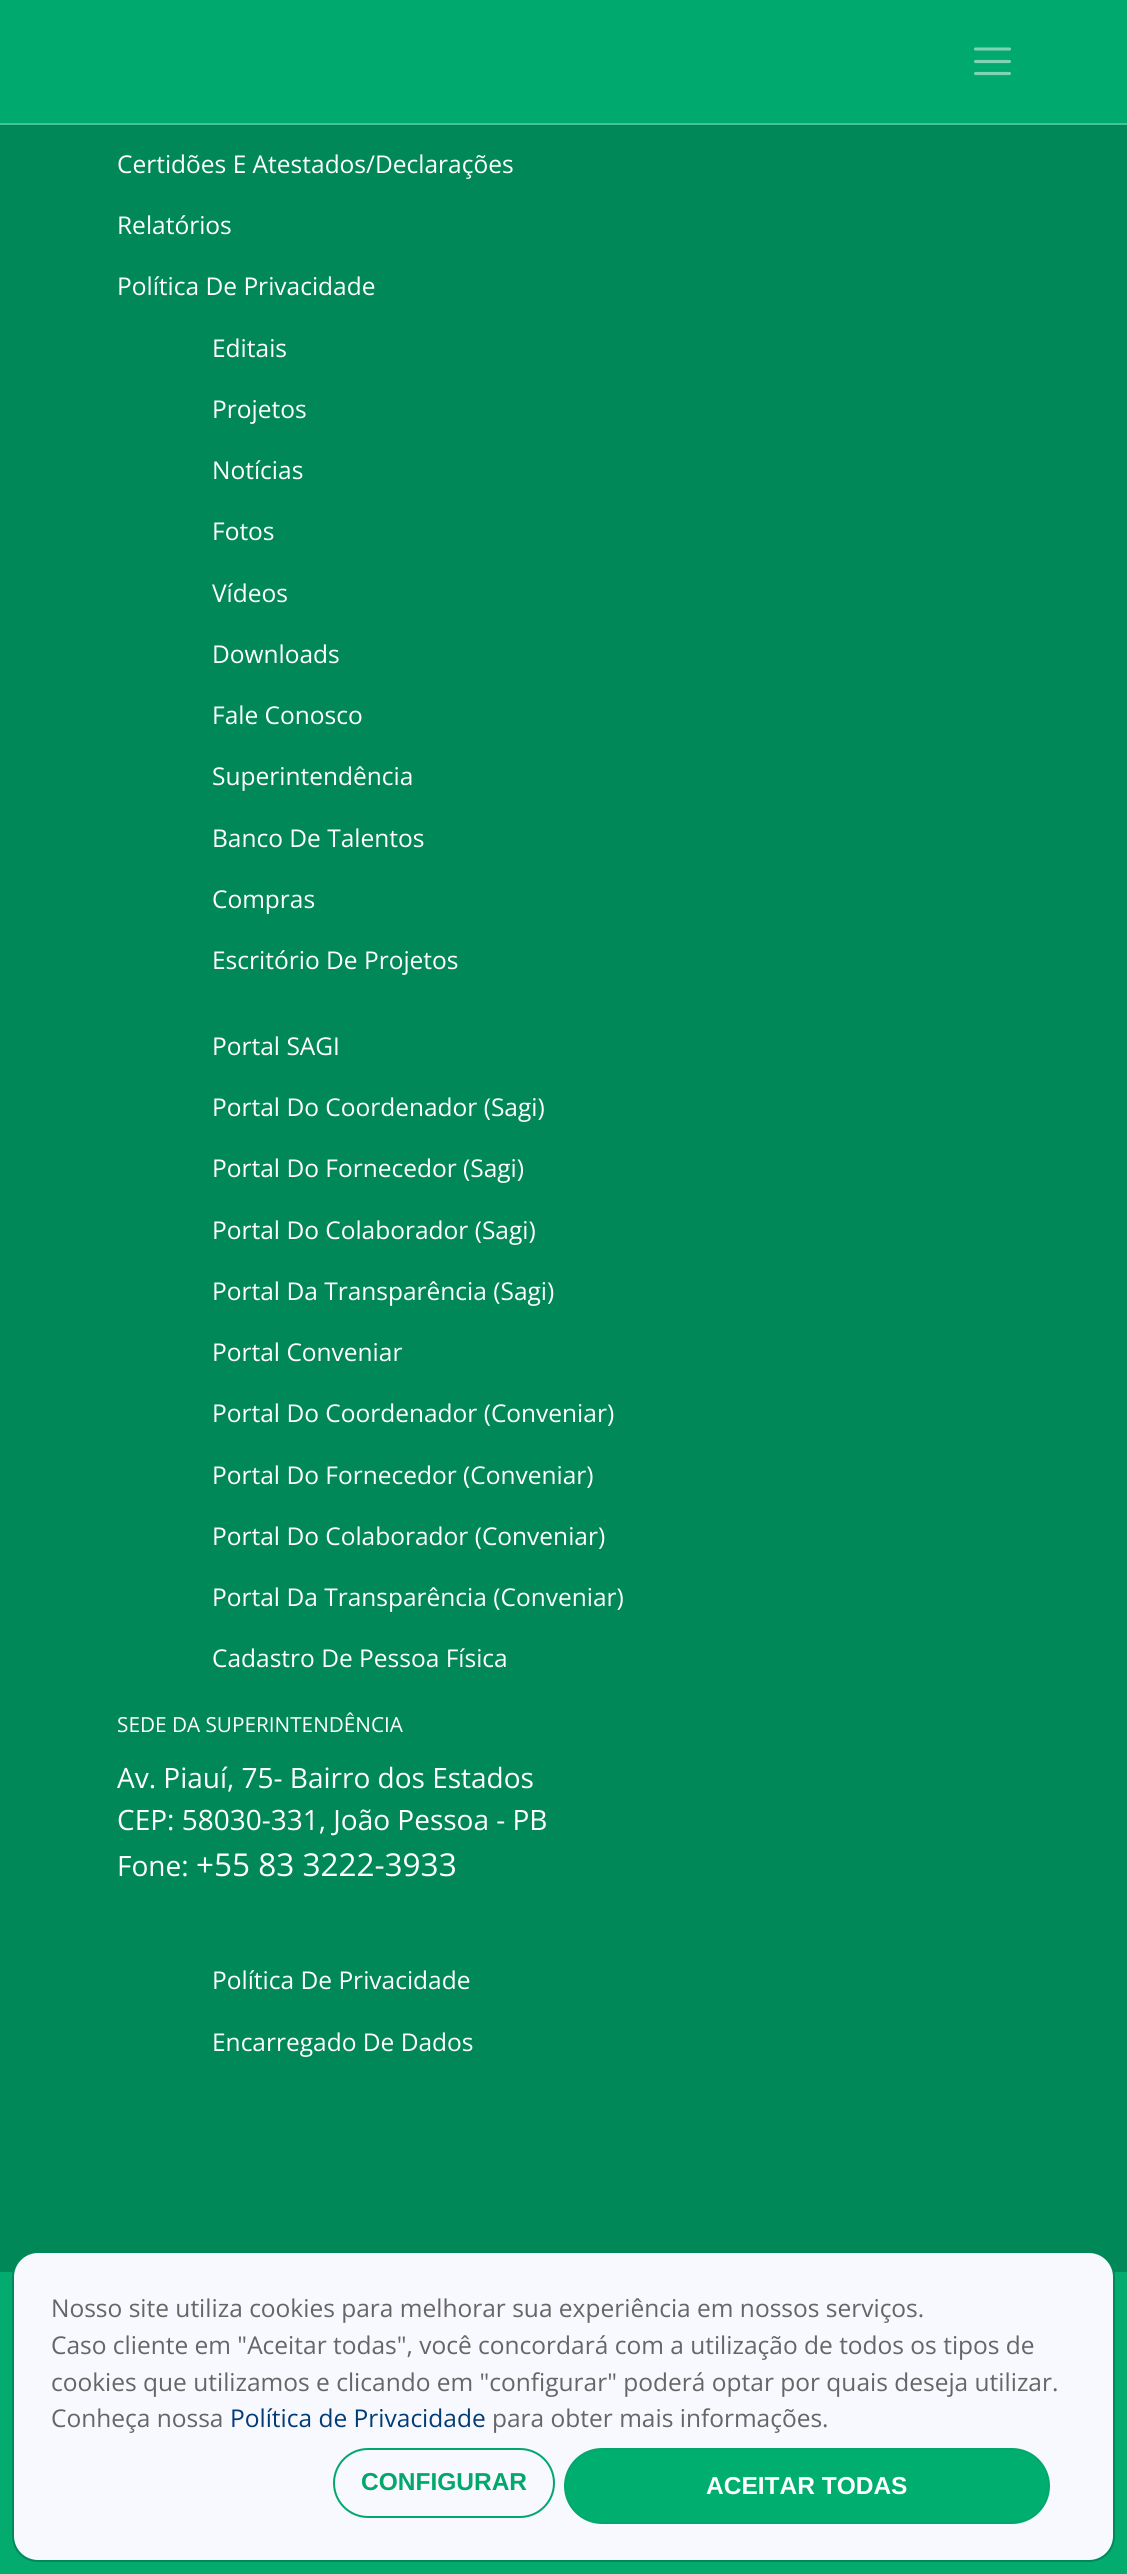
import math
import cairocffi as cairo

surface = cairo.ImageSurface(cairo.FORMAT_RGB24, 1127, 2574)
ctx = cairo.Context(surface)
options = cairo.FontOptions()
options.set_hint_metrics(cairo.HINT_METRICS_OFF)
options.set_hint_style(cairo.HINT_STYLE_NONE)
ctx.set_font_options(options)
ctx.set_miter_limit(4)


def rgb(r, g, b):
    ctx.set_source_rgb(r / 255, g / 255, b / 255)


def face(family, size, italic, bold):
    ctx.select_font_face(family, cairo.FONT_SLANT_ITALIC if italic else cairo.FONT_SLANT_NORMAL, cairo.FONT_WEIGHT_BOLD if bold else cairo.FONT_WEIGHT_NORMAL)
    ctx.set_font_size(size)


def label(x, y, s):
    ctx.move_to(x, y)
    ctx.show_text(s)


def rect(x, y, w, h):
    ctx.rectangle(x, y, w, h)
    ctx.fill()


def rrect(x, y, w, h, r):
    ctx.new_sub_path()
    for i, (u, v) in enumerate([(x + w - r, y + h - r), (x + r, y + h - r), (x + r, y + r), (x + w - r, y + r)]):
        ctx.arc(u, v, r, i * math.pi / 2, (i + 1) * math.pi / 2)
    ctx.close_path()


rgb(1, 136, 88)
ctx.paint()
rgb(0, 169, 109)
rect(0, 0, 1127, 123)
ctx.new_path()
ctx.move_to(975.5, 49)
ctx.line_to(1009.5, 49)
ctx.move_to(975.5, 61.5)
ctx.line_to(1009.5, 61.5)
ctx.move_to(975.5, 73.5)
ctx.line_to(1009.5, 73.5)
rgb(128, 212, 182)
ctx.set_line_width(3.1)
ctx.set_line_cap(cairo.LINE_CAP_ROUND)
ctx.stroke()
rgb(71, 193, 150)
rect(0, 123, 1127, 2)
face('Open Sans', 24.5, 0, 0)
rgb(255, 255, 255)
label(117, 173, 'Certidões E Atestados/Declarações')
label(117, 234, 'Relatórios')
label(117, 295, 'Política De Privacidade')
label(212, 357, 'Editais')
label(212, 418, 'Projetos')
label(212, 479, 'Notícias')
label(212, 540, 'Fotos')
label(212, 602, 'Vídeos')
label(212, 663, 'Downloads')
label(212, 724, 'Fale Conosco')
label(212, 785, 'Superintendência')
label(212, 847, 'Banco De Talentos')
label(212, 908, 'Compras')
label(212, 969, 'Escritório De Projetos')
label(212, 1055, 'Portal SAGI')
label(212, 1116, 'Portal Do Coordenador (Sagi)')
label(212, 1177, 'Portal Do Fornecedor (Sagi)')
label(212, 1239, 'Portal Do Colaborador (Sagi)')
label(212, 1300, 'Portal Da Transparência (Sagi)')
label(212, 1361, 'Portal Conveniar')
label(212, 1422, 'Portal Do Coordenador (Conveniar)')
label(212, 1484, 'Portal Do Fornecedor (Conveniar)')
label(212, 1545, 'Portal Do Colaborador (Conveniar)')
label(212, 1606, 'Portal Da Transparência (Conveniar)')
label(212, 1667, 'Cadastro De Pessoa Física')
face('Open Sans', 20.75, 0, 0)
label(117, 1732, 'SEDE DA SUPERINTENDÊNCIA')
face('Open Sans', 28, 0, 0)
label(117, 1788, 'Av. Piauí, 75- Bairro dos Estados')
label(117, 1830, 'CEP: 58030-331, João Pessoa - PB')
label(117, 1876, 'Fone:')
face('Open Sans', 31.5, 0, 0)
label(196, 1876, '+55 83 3222-3933')
face('Open Sans', 24.5, 0, 0)
label(212, 1989, 'Política De Privacidade')
label(212, 2051, 'Encarregado De Dados')
rgb(3, 171, 111)
rect(0, 2272, 1127, 302)
rgb(248, 248, 255)
rrect(13, 2252, 1101, 309, 25)
ctx.fill_preserve()
rgb(1, 136, 88)
ctx.set_line_width(2)
ctx.set_line_cap(cairo.LINE_CAP_BUTT)
ctx.stroke()
rgb(102, 102, 102)
label(51, 2317, 'Nosso site utiliza cookies para melhorar sua experiência em nossos serviços.')
label(51, 2354, 'Caso cliente em "Aceitar todas", você concordará com a utilização de todos os tipos de')
label(51, 2391, 'cookies que utilizamos e clicando em "configurar" poderá optar por quais deseja utilizar.')
label(51, 2427, 'Conheça nossa')
rgb(2, 60, 117)
label(230, 2427, 'Política de Privacidade')
rgb(102, 102, 102)
label(492, 2427, 'para obter mais informações.')
rrect(334, 2449, 220, 68, 34)
rgb(2, 167, 108)
ctx.stroke()
face('Liberation Sans', 24.5, 0, 1)
label(361, 2490, 'CONFIGURAR')
rgb(0, 174, 112)
rrect(565, 2449, 484, 74, 37)
ctx.fill_preserve()
rgb(2, 167, 108)
ctx.stroke()
rgb(255, 255, 255)
label(706, 2494, 'ACEITAR TODAS')
surface.write_to_png('render.png')
